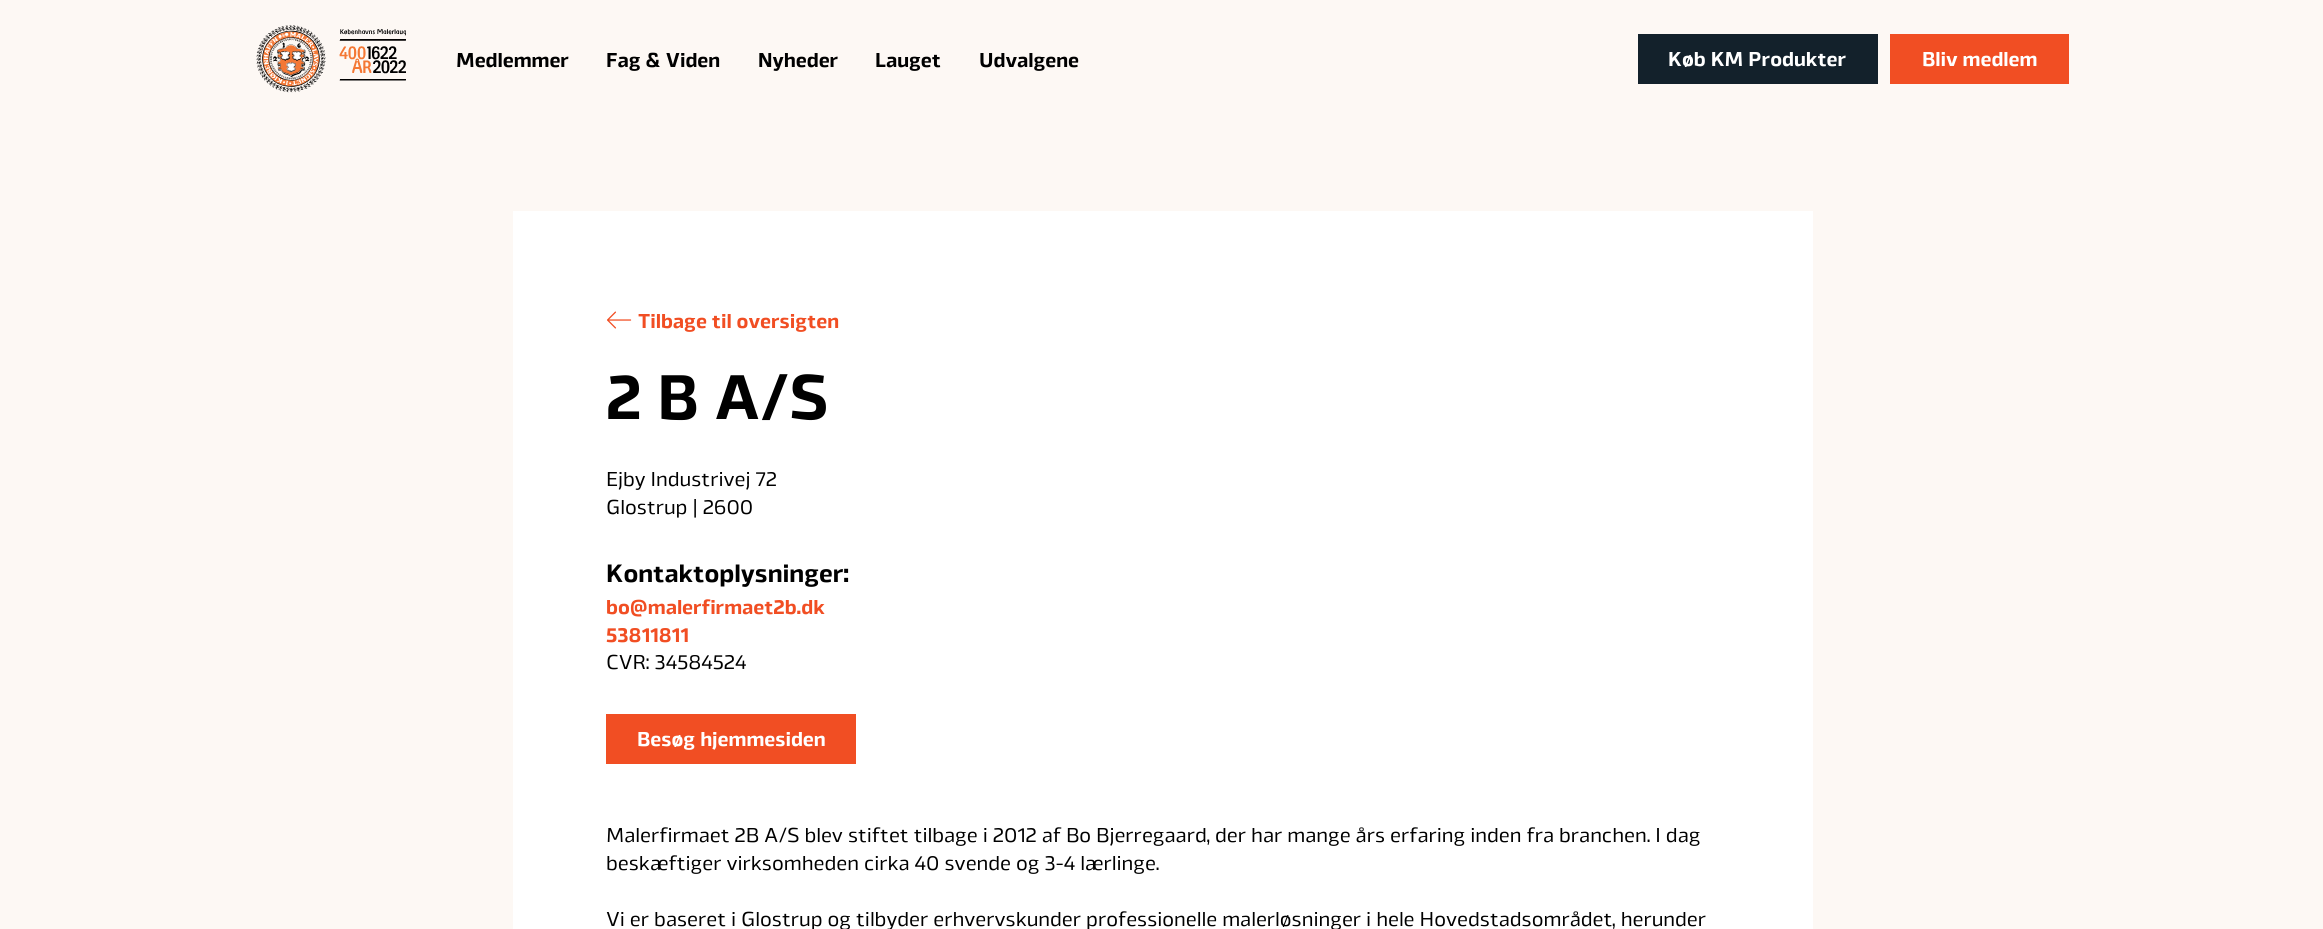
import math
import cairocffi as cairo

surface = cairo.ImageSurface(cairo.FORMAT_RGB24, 2323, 929)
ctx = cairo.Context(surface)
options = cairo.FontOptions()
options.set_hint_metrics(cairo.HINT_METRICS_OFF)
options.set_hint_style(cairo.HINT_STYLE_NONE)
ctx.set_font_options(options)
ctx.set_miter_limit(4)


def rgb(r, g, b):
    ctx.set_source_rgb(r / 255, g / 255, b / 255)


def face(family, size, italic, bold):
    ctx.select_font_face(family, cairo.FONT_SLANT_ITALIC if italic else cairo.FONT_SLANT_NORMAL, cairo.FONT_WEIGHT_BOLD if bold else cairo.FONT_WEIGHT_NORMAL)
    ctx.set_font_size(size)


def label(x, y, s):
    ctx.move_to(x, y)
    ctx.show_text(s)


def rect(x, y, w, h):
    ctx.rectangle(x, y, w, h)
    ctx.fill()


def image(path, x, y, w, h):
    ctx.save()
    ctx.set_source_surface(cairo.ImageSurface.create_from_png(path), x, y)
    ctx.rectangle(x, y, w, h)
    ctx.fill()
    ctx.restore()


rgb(253, 248, 244)
ctx.paint()
image('image0.png', 256, 25, 150, 68)
face('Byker', 20, 0, 1)
rgb(0, 0, 0)
label(456, 67, 'Medlemmer')
label(606, 67, 'Fag & Viden')
label(758, 67, 'Nyheder')
label(875, 67, 'Lauget')
label(979, 67, 'Udvalgene')
rgb(19, 33, 43)
rect(1638, 34, 240, 50)
rgb(255, 255, 255)
label(1668, 66, 'Køb KM Produkter')
rgb(241, 78, 35)
rect(1890, 34, 179, 50)
rgb(255, 255, 255)
label(1922, 66, 'Bliv medlem')
rect(513, 211, 1300, 718)
image('image1.png', 607, 311, 25, 18)
rgb(241, 78, 35)
label(638, 328, 'Tilbage til oversigten')
face('Byker', 62.5, 0, 1)
rgb(0, 0, 0)
label(606, 419, '2 B A/S')
face('Byker', 20, 0, 0)
label(606, 486, 'Ejby Industrivej 72')
label(606, 514, 'Glostrup | 2600')
face('Byker', 25, 0, 1)
label(606, 582, 'Kontaktoplysninger:')
face('Byker', 20, 0, 1)
rgb(241, 78, 35)
label(606, 614, 'bo@malerfirmaet2b.dk')
label(606, 642, '53811811')
face('Byker', 20, 0, 0)
rgb(0, 0, 0)
label(606, 669, 'CVR: 34584524')
rgb(241, 78, 35)
rect(606, 714, 250, 50)
face('Byker', 20, 0, 1)
rgb(255, 255, 255)
label(637, 746, 'Besøg hjemmesiden')
face('Byker', 20, 0, 0)
rgb(0, 0, 0)
label(606, 842, 'Malerfirmaet 2B A/S blev stiftet tilbage i 2012 af Bo Bjerregaard, der har mange års erfaring inden fra branchen. I dag')
label(606, 870, 'beskæftiger virksomheden cirka 40 svende og 3-4 lærlinge.')
label(606, 926, 'Vi er baseret i Glostrup og tilbyder erhvervskunder professionelle malerløsninger i hele Hovedstadsområdet, herunder')
surface.write_to_png('render.png')
